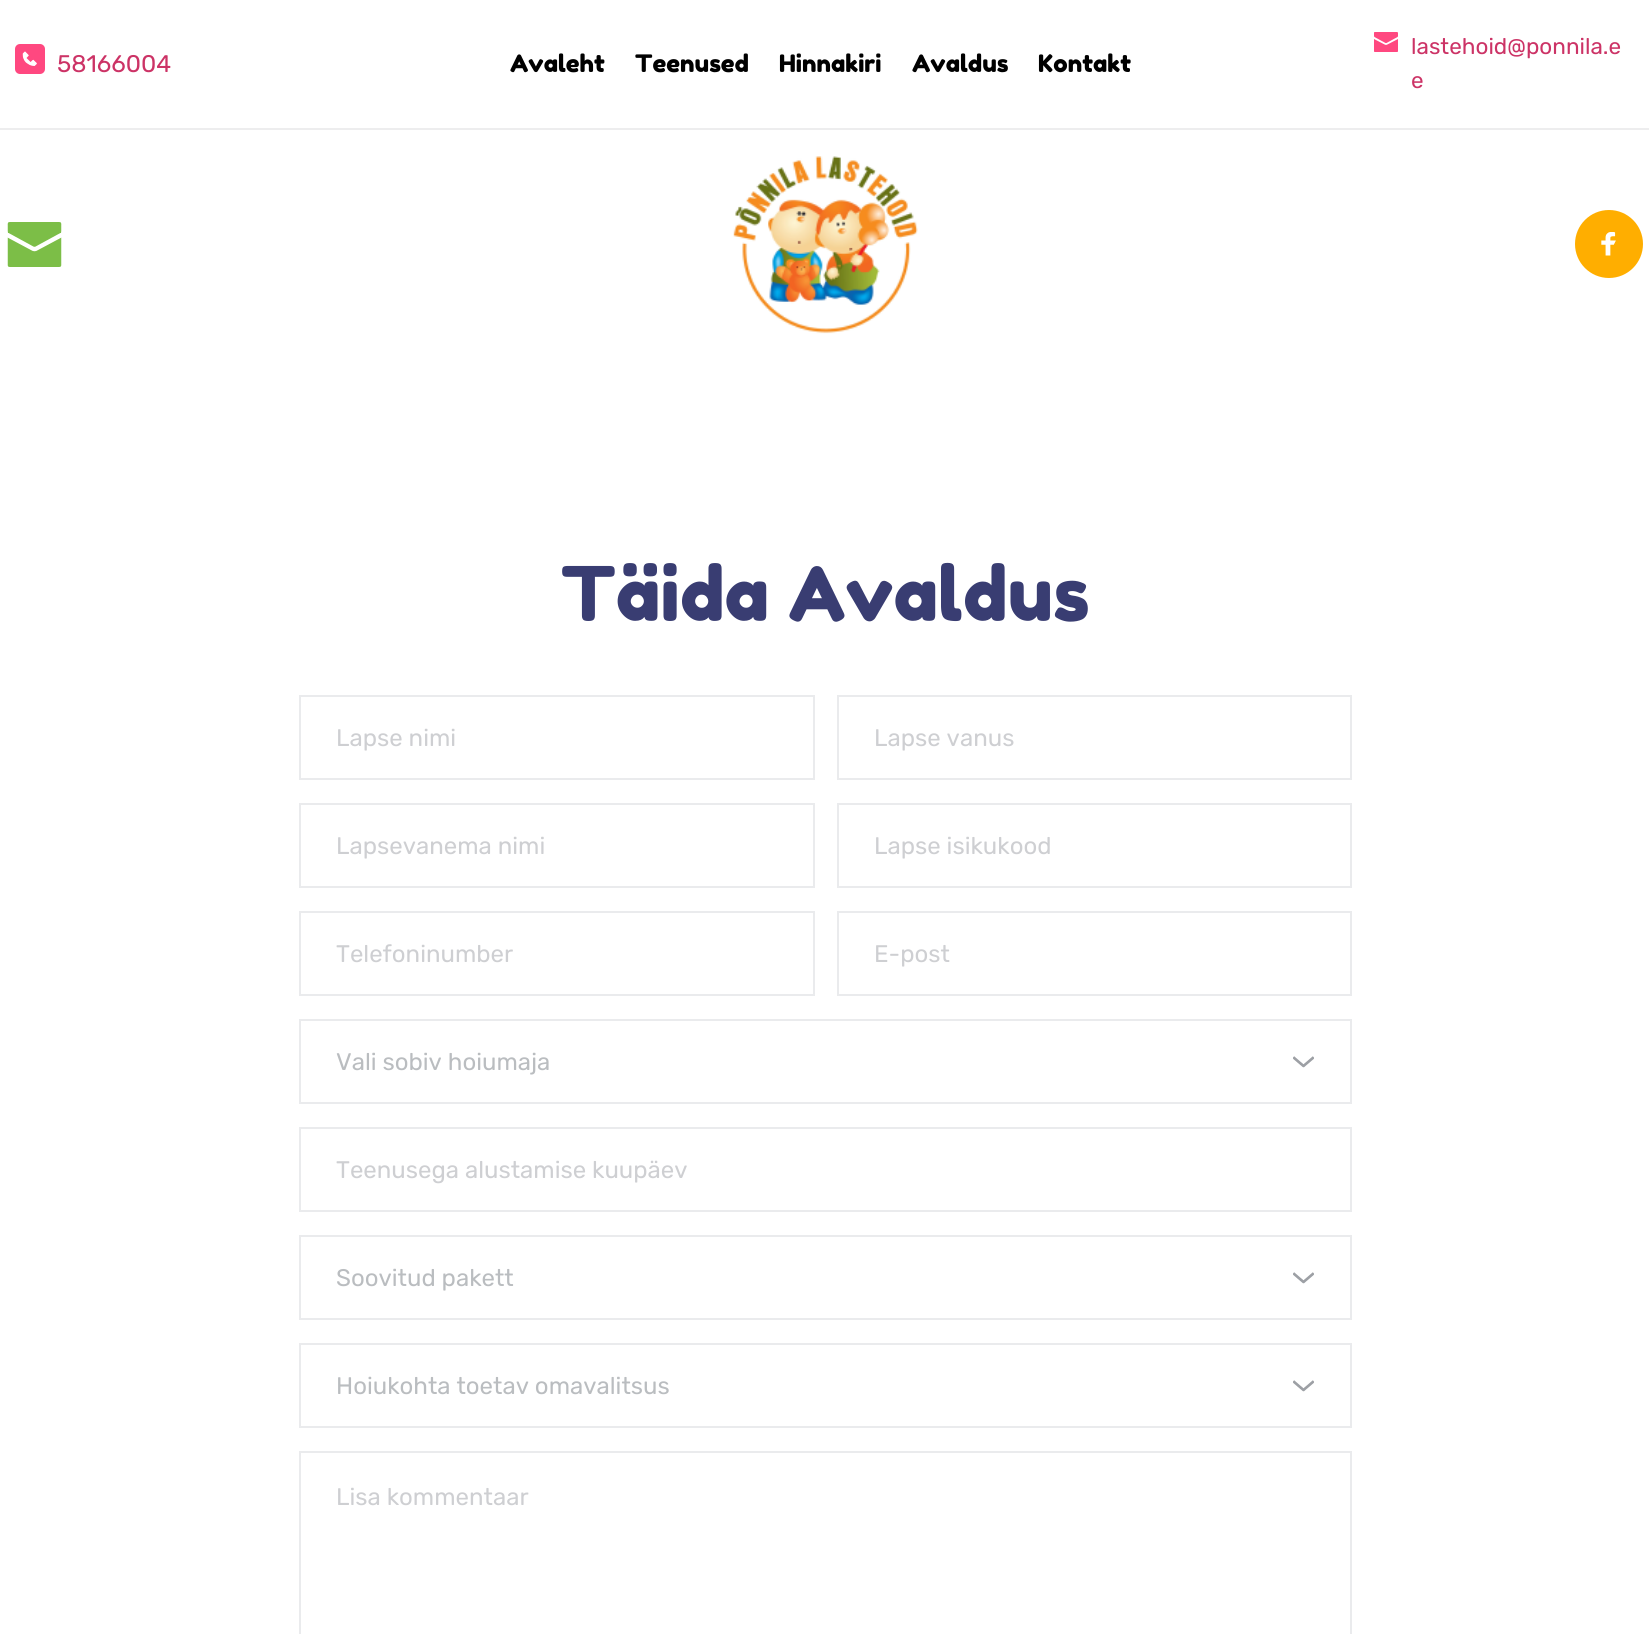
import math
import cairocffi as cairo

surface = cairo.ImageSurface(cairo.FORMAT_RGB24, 1649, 1634)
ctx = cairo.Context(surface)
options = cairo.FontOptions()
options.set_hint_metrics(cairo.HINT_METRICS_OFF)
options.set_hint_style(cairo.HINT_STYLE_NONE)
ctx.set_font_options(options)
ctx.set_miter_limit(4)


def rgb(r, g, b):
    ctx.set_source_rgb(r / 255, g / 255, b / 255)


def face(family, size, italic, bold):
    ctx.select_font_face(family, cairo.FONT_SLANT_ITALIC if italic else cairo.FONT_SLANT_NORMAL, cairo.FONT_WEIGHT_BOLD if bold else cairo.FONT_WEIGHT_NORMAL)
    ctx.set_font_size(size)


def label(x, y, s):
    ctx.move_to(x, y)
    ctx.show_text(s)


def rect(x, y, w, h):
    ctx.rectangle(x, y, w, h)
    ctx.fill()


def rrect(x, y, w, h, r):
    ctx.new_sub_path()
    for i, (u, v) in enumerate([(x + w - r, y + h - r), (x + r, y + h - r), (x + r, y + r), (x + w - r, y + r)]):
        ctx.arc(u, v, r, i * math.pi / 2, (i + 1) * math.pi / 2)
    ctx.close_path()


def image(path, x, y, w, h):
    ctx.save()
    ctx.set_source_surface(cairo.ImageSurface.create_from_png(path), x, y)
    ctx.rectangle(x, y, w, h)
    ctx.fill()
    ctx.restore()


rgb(255, 255, 255)
ctx.paint()
rgb(255, 72, 128)
rrect(15, 44, 30, 30, 5)
ctx.fill()
image('image0.png', 22, 51, 15, 15)
face('Rubik Light', 24, 0, 0)
rgb(204, 51, 102)
label(57, 72, '58166004')
face('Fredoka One', 24, 0, 0)
rgb(0, 0, 0)
label(510, 72, 'Avaleht')
label(635, 72, 'Teenused')
label(779, 72, 'Hinnakiri')
label(912, 72, 'Avaldus')
label(1038, 72, 'Kontakt')
image('image1.png', 1374, 32, 24, 20)
face('Rubik Light', 22.5, 0, 0)
rgb(204, 51, 102)
label(1411, 54, 'lastehoid@ponnila.e')
label(1411, 88, 'e')
rgb(237, 237, 238)
rect(0, 128, 1649, 2)
image('image2.png', 7, 222, 55, 45)
image('image3.png', 733, 156, 185, 178)
rgb(255, 174, 0)
ctx.arc(1609, 244, 34, 0, 2 * math.pi)
ctx.fill()
image('image4.png', 1601, 232, 15, 24)
face('Fredoka One', 75, 0, 0)
rgb(57, 61, 114)
label(561, 621, 'Täida Avaldus')
ctx.rectangle(300, 696, 514, 83)
rgb(234, 235, 237)
ctx.stroke()
face('Rubik Light', 24, 0, 0)
rgb(206, 207, 210)
label(336, 746, 'Lapse nimi')
ctx.rectangle(838, 696, 513, 83)
rgb(234, 235, 237)
ctx.stroke()
rgb(206, 207, 210)
label(874, 746, 'Lapse vanus')
ctx.rectangle(300, 804, 514, 83)
rgb(234, 235, 237)
ctx.stroke()
rgb(206, 207, 210)
label(336, 854, 'Lapsevanema nimi')
ctx.rectangle(838, 804, 513, 83)
rgb(234, 235, 237)
ctx.stroke()
rgb(206, 207, 210)
label(874, 854, 'Lapse isikukood')
ctx.rectangle(300, 912, 514, 83)
rgb(234, 235, 237)
ctx.stroke()
rgb(206, 207, 210)
label(336, 962, 'Telefoninumber')
ctx.rectangle(838, 912, 513, 83)
rgb(234, 235, 237)
ctx.stroke()
rgb(206, 207, 210)
label(874, 962, 'E-post')
ctx.rectangle(300, 1020, 1051, 83)
rgb(234, 235, 237)
ctx.stroke()
rgb(186, 189, 192)
label(336, 1070, 'Vali sobiv hoiumaja')
image('image5.png', 1293, 1056, 21, 12)
ctx.rectangle(300, 1128, 1051, 83)
rgb(234, 235, 237)
ctx.stroke()
rgb(206, 207, 210)
label(336, 1178, 'Teenusega alustamise kuupäev')
ctx.rectangle(300, 1236, 1051, 83)
rgb(234, 235, 237)
ctx.stroke()
rgb(186, 189, 192)
label(336, 1286, 'Soovitud pakett')
image('image5.png', 1293, 1272, 21, 12)
ctx.rectangle(300, 1344, 1051, 83)
rgb(234, 235, 237)
ctx.stroke()
rgb(186, 189, 192)
label(336, 1394, 'Hoiukohta toetav omavalitsus')
image('image5.png', 1293, 1380, 21, 12)
ctx.rectangle(300, 1452, 1051, 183)
rgb(234, 235, 237)
ctx.stroke()
rgb(206, 207, 210)
label(336, 1505, 'Lisa kommentaar')
surface.write_to_png('render.png')
